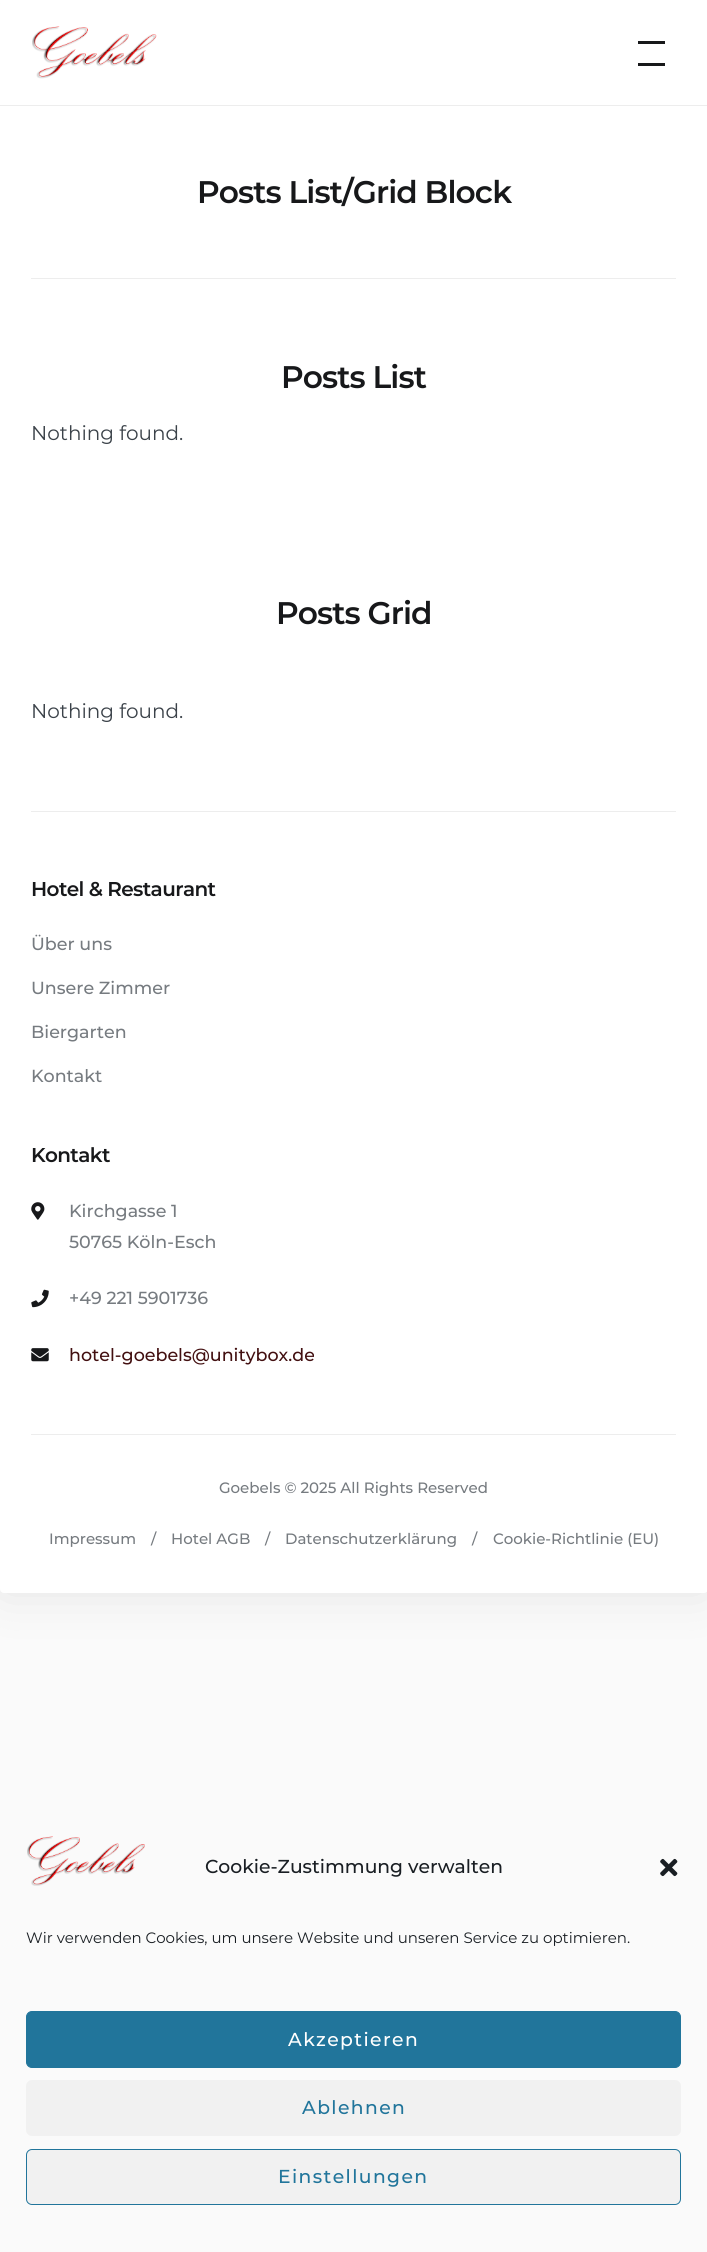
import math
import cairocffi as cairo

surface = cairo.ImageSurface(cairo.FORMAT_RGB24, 707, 2252)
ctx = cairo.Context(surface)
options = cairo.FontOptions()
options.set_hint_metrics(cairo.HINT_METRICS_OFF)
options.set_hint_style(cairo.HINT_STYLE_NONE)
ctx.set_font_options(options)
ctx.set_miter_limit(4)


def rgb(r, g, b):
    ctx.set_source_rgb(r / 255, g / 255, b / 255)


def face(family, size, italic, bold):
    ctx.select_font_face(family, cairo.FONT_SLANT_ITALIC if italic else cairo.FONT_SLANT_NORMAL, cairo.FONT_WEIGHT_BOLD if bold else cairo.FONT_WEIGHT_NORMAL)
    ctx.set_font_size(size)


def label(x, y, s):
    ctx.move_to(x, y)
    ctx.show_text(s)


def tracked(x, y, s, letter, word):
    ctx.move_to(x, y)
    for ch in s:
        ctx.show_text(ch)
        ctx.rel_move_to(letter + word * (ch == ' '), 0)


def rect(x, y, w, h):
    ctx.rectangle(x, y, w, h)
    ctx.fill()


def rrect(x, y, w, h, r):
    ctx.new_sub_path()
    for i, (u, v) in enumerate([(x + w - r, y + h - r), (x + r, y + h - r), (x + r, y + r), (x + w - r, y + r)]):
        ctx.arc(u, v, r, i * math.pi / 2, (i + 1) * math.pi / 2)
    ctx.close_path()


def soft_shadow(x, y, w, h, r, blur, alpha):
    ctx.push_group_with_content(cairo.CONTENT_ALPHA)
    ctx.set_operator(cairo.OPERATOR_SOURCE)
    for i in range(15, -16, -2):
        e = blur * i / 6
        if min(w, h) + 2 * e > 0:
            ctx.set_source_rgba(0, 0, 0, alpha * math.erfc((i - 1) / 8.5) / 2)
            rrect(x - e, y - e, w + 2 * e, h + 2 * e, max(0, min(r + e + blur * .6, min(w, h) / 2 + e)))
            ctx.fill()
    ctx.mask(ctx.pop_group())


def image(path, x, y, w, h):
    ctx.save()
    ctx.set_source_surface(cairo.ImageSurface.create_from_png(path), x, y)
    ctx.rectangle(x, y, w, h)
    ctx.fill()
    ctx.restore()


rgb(250, 250, 250)
ctx.paint()
rgb(0, 0, 0)
soft_shadow(0, 0, 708, 1593, 4, 25, 0.09)
rgb(255, 255, 255)
rrect(0, 0, 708, 1593, 4)
ctx.fill()
rgb(237, 237, 237)
rect(0, 105, 707, 1)
rgb(255, 255, 255)
rect(0, 0, 707, 3)
image('image0.png', 32, 26, 125, 53)
rgb(23, 24, 26)
rect(638, 41, 27, 3)
rect(638, 63, 27, 3)
rgb(237, 237, 237)
rect(31, 278, 645, 1)
face('Montserrat SemiBold', 31.25, 0, 0)
rgb(23, 24, 26)
tracked(197, 203, 'Posts List/Grid Block', -0.9, 0)
tracked(281, 388, 'Posts List', -0.9, 0)
face('Montserrat', 20, 0, 0)
rgb(59, 66, 73)
label(31, 440, 'Nothing found.')
face('Montserrat SemiBold', 31.25, 0, 0)
rgb(23, 24, 26)
tracked(276, 624, 'Posts Grid', -0.9, 0)
face('Montserrat', 20, 0, 0)
rgb(59, 66, 73)
label(31, 718, 'Nothing found.')
rgb(237, 237, 237)
rect(31, 811, 645, 1)
face('Montserrat SemiBold', 20, 0, 0)
rgb(23, 24, 26)
tracked(31, 896, 'Hotel & Restaurant', -0.6, 0)
face('Montserrat Medium', 17.5, 0, 0)
rgb(118, 123, 128)
label(31, 950, 'Über uns')
label(31, 994, 'Unsere Zimmer')
label(31, 1038, 'Biergarten')
label(31, 1082, 'Kontakt')
face('Montserrat SemiBold', 20, 0, 0)
rgb(23, 24, 26)
tracked(31, 1162, 'Kontakt', -0.6, 0)
image('image1.png', 31, 1202, 14, 18)
face('Montserrat Medium', 17.5, 0, 0)
rgb(118, 123, 128)
label(69, 1217, 'Kirchgasse 1')
label(69, 1248, '50765 Köln-Esch')
image('image2.png', 31, 1289, 18, 19)
label(69, 1304, '+49 221 5901736')
image('image3.png', 31, 1348, 18, 14)
rgb(66, 15, 16)
label(69, 1361, 'hotel-goebels@unitybox.de')
rgb(237, 237, 237)
rect(31, 1434, 645, 1)
face('Montserrat Medium', 15, 0, 0)
rgb(118, 123, 128)
label(219, 1493, 'Goebels © 2025 All Rights Reserved')
label(49, 1544, 'Impressum')
label(151, 1544, '/')
label(171, 1544, 'Hotel AGB')
label(265, 1544, '/')
label(285, 1544, 'Datenschutzerklärung')
label(472, 1544, '/')
label(493, 1544, 'Cookie-Richtlinie (EU)')
image('image4.png', 27, 1836, 118, 50)
face('Montserrat Medium', 18.75, 0, 0)
rgb(25, 30, 35)
label(205, 1873, 'Cookie-Zustimmung verwalten')
image('image5.png', 660, 1858, 18, 19)
face('Montserrat', 15, 0, 0)
label(26, 1943, 'Wir verwenden Cookies, um unsere Website und unseren Service zu optimieren.')
rgb(33, 117, 155)
rrect(26.5, 2011.5, 654, 56, 5.5)
ctx.fill_preserve()
ctx.set_line_width(1)
ctx.stroke()
face('Montserrat Medium', 18.75, 0, 0)
rgb(255, 255, 255)
tracked(288, 2046, 'Akzeptieren', 1.4, 0)
rgb(241, 241, 241)
rrect(26, 2080, 655, 56, 6)
ctx.fill()
rgb(33, 117, 155)
tracked(302, 2114, 'Ablehnen', 1.4, 0)
rgb(241, 241, 241)
rrect(26.5, 2149.5, 654, 55, 5.5)
ctx.fill_preserve()
rgb(33, 117, 155)
ctx.stroke()
tracked(278, 2183, 'Einstellungen', 1.4, 0)
surface.write_to_png('render.png')
